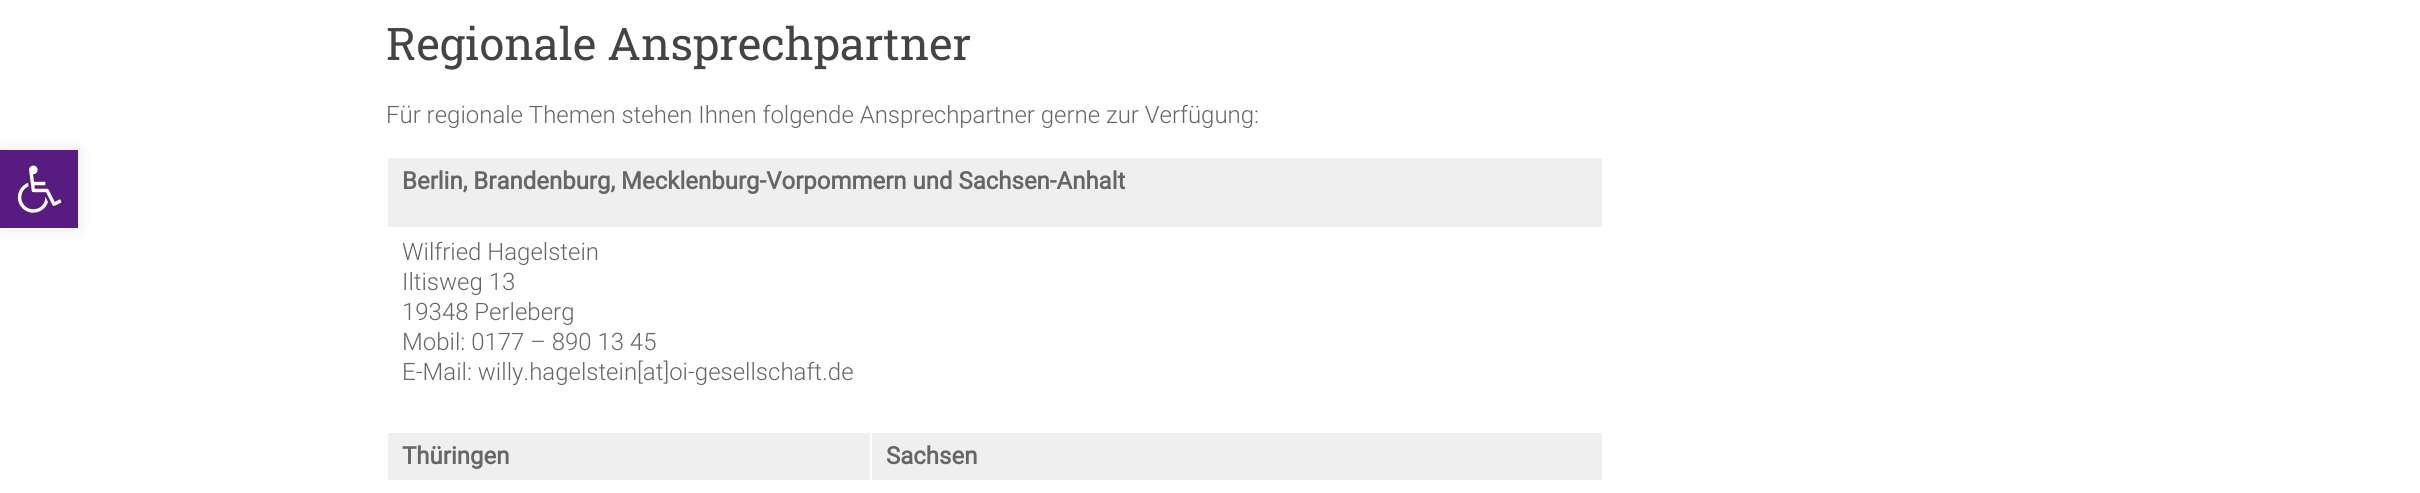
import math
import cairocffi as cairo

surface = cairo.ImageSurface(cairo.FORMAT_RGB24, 2420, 493)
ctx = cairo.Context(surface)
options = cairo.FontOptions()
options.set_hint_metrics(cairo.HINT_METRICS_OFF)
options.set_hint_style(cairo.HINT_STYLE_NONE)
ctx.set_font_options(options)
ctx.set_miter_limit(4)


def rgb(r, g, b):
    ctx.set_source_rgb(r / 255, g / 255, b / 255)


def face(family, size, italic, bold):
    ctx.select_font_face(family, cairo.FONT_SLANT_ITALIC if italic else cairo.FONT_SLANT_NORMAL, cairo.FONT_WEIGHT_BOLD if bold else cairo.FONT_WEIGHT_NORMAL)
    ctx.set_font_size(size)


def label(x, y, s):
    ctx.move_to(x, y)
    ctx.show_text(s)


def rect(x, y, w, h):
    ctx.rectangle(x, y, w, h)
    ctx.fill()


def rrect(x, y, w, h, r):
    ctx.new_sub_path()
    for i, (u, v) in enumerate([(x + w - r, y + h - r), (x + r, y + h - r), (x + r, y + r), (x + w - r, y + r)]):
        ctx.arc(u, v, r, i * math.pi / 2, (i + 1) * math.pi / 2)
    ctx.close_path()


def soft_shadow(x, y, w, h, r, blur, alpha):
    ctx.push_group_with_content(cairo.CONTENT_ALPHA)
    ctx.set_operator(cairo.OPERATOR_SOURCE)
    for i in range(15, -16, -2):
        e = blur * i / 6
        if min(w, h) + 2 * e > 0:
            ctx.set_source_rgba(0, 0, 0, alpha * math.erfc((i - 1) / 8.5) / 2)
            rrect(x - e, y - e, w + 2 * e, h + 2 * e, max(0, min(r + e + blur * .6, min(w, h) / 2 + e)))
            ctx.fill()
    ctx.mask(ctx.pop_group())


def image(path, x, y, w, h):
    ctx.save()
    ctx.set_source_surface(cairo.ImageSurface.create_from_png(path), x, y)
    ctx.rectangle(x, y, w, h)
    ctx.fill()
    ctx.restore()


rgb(255, 255, 255)
ctx.paint()
rgb(0, 0, 0)
soft_shadow(0, 150, 78, 78, 0, 7.5, 0.1)
rgb(88, 27, 127)
rect(0, 150, 78, 78)
image('image0.png', 17, 165, 45, 48)
face('Roboto Slab', 45, 0, 0)
rgb(68, 68, 68)
label(386, 60, 'Regionale Ansprechpartner')
face('Roboto Light', 24, 0, 0)
rgb(102, 102, 102)
label(386, 123, 'Für regionale Themen stehen Ihnen folgende Ansprechpartner gerne zur Verfügung:')
rgb(239, 239, 239)
rect(388, 158, 1214, 69)
face('Roboto', 24, 0, 1)
rgb(102, 102, 102)
label(402, 189, 'Berlin, Brandenburg, Mecklenburg-Vorpommern und Sachsen-Anhalt')
face('Roboto Light', 24, 0, 0)
label(402, 260, 'Wilfried Hagelstein')
label(402, 290, 'Iltisweg 13')
label(402, 320, '19348 Perleberg')
label(402, 350, 'Mobil: 0177 – 890 13 45')
label(402, 380, 'E-Mail: willy.hagelstein[at]oi-gesellschaft.de')
rgb(239, 239, 239)
rect(388, 433, 1214, 47)
face('Roboto', 24, 0, 1)
rgb(102, 102, 102)
label(402, 464, 'Thüringen')
rgb(255, 255, 255)
rect(870, 431, 2, 51)
rgb(102, 102, 102)
label(886, 464, 'Sachsen')
surface.write_to_png('render.png')
